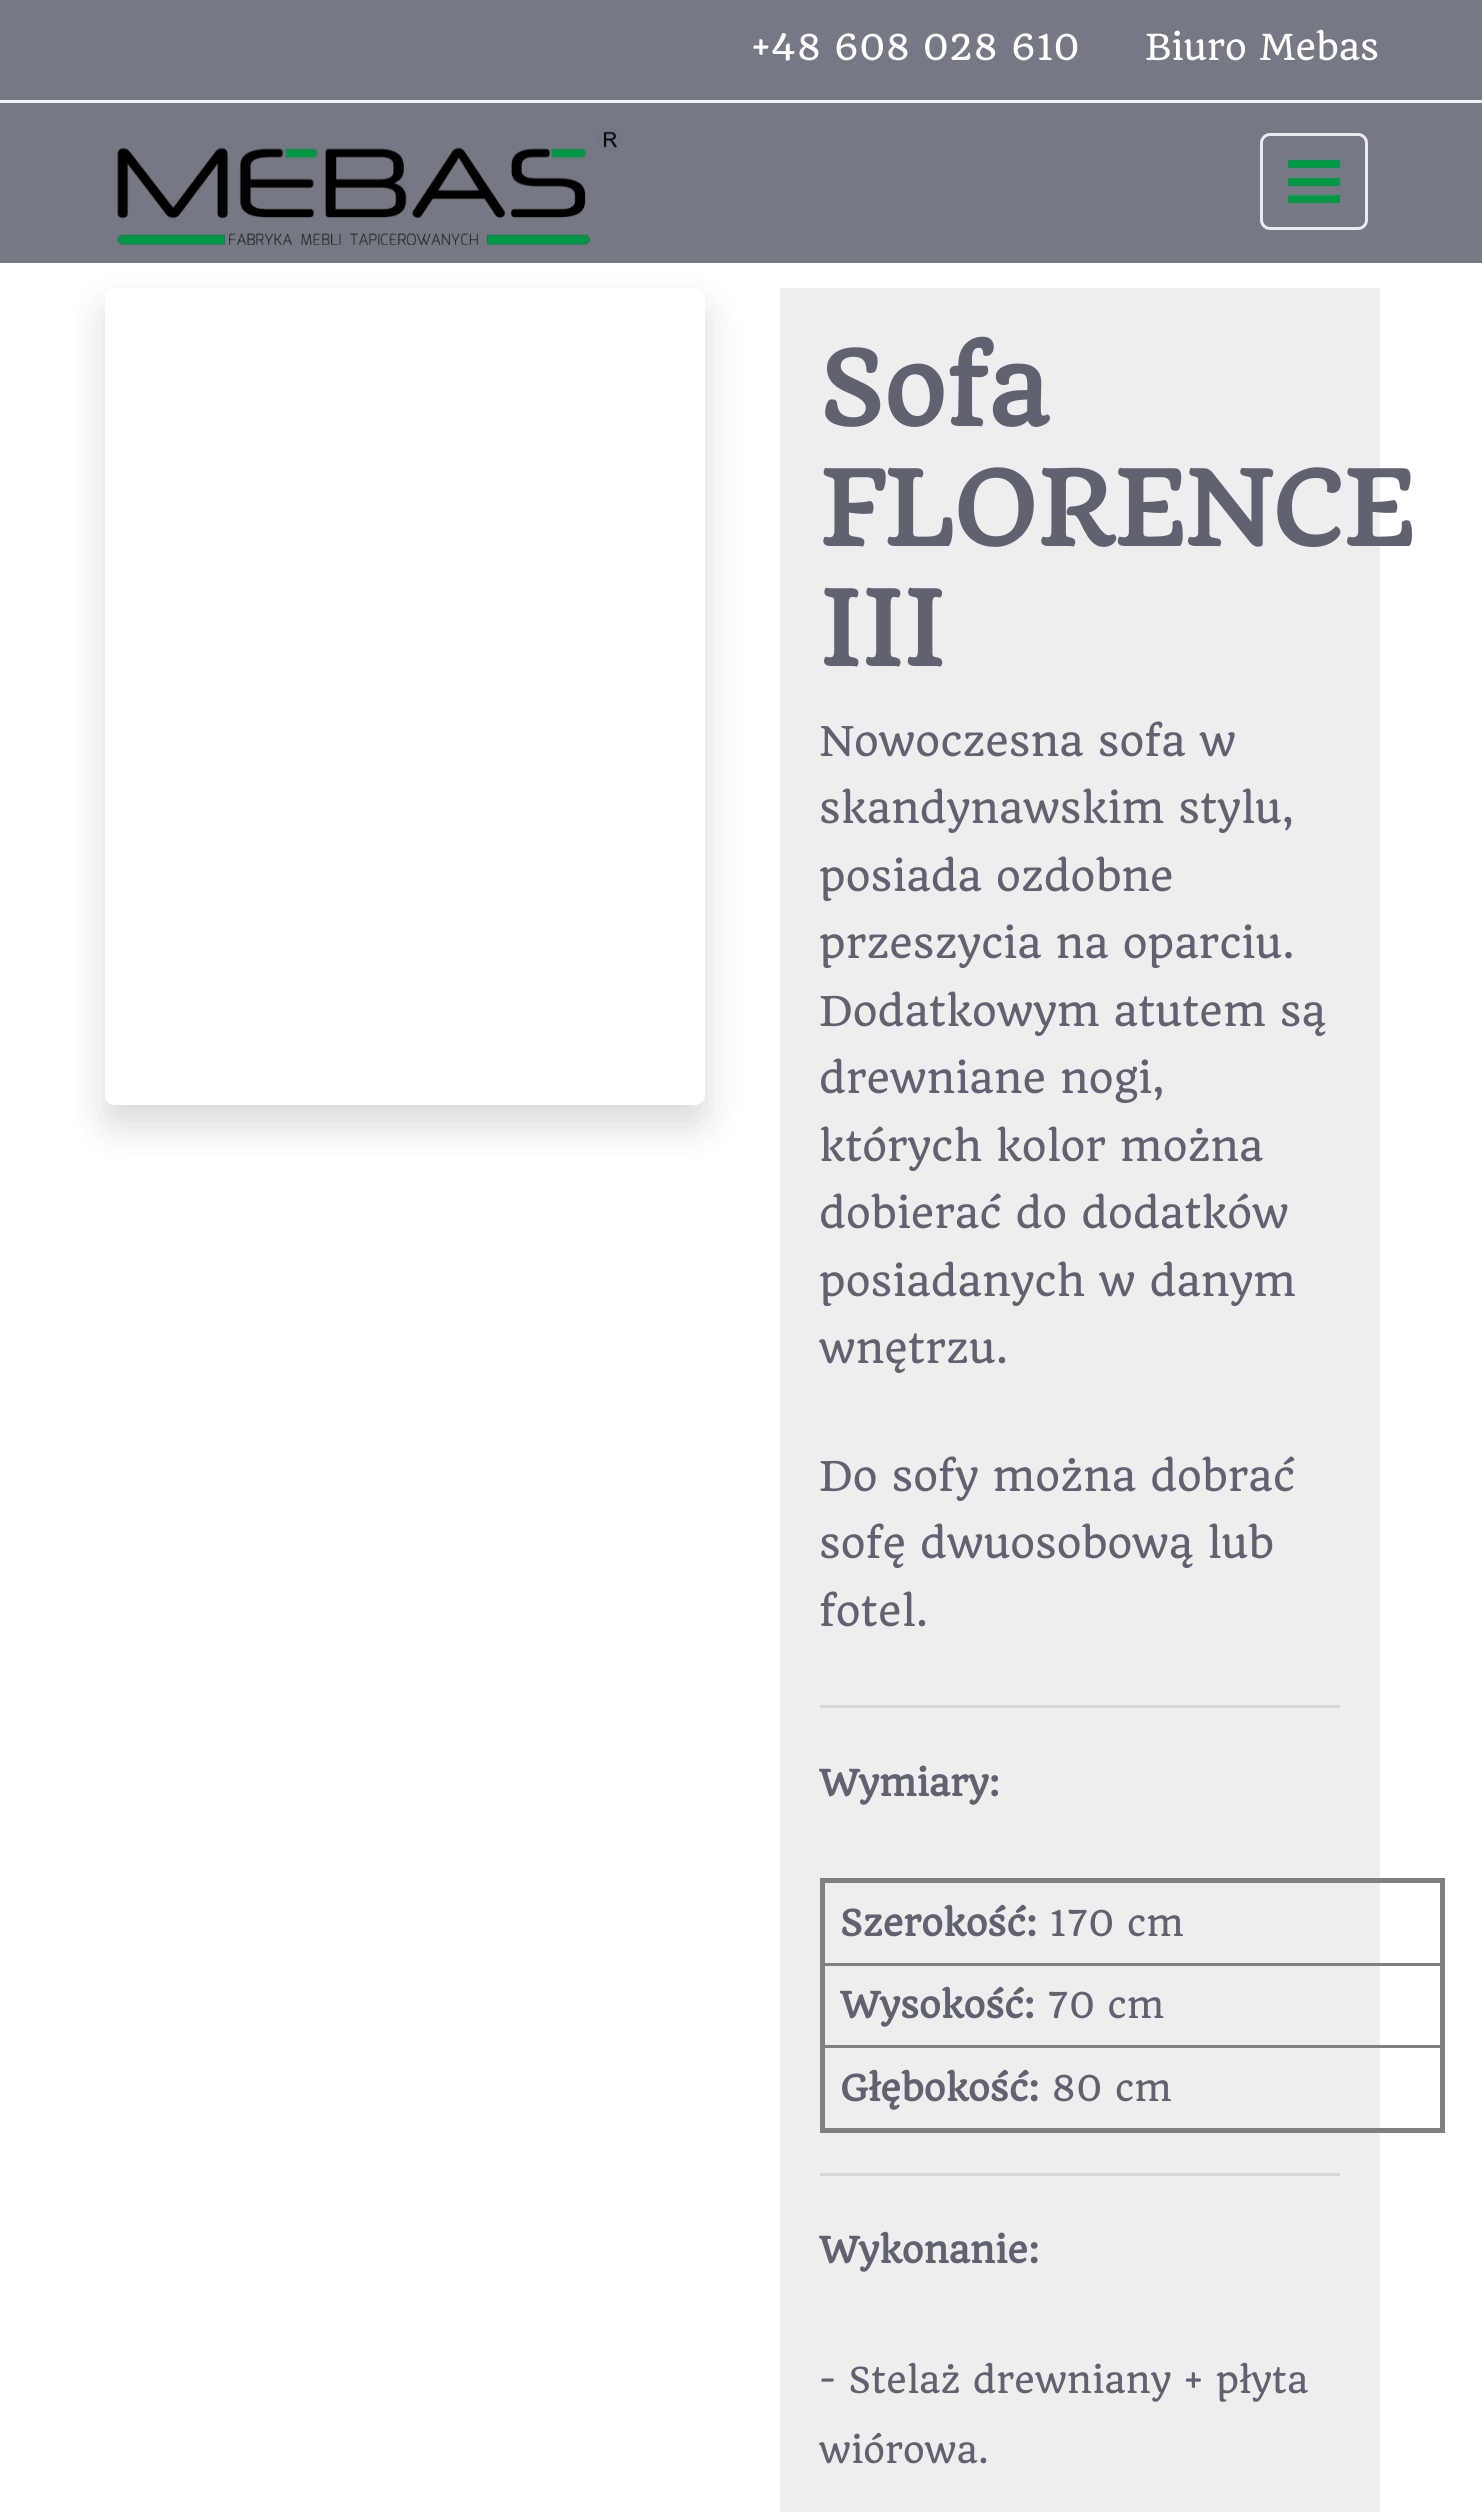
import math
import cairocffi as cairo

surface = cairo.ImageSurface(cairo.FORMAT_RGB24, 1482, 2512)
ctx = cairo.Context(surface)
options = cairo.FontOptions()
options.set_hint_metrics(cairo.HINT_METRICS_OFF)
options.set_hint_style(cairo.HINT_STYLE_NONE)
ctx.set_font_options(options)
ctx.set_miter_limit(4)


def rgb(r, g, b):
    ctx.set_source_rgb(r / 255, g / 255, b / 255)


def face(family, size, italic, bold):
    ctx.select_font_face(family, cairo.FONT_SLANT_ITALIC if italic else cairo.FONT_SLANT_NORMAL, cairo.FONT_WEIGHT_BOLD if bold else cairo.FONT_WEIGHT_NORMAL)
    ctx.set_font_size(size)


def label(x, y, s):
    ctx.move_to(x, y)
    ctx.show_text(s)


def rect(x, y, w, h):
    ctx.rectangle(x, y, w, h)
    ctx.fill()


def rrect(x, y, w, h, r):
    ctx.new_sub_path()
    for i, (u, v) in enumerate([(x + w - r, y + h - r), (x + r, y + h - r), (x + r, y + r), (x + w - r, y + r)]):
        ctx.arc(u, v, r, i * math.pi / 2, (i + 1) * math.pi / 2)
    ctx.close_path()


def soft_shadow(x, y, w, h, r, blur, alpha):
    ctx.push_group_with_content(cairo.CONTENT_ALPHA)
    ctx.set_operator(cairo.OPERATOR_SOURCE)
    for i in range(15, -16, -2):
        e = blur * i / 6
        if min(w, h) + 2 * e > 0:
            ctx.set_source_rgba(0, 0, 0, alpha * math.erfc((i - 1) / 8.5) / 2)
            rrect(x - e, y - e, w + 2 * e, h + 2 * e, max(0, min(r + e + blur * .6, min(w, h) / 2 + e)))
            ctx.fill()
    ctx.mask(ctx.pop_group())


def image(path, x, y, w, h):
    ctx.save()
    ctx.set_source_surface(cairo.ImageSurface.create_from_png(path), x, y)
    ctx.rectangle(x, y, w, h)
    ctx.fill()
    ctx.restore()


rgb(255, 255, 255)
ctx.paint()
rgb(0, 0, 0)
soft_shadow(105, 308, 600, 817, 10, 20, 0.15)
rgb(118, 120, 131)
rect(0, 0, 1482, 263)
rgb(240, 241, 249)
rect(0, 100, 1482, 3)
face('Quando', 35, 0, 0)
rgb(255, 255, 255)
label(751, 60, '+48 608 028 610')
label(1145, 60, 'Biuro Mebas')
image('image0.png', 117, 128, 503, 117)
rrect(1261.5, 134.5, 105, 94, 8.5)
rgb(234, 234, 240)
ctx.set_line_width(3)
ctx.stroke()
rgb(0, 153, 70)
rect(1288, 160, 52, 8)
rect(1288, 178, 52, 8)
rect(1288, 195, 52, 8)
rgb(255, 255, 255)
rrect(105, 288, 600, 817, 10)
ctx.fill()
rgb(238, 238, 238)
rect(780, 288, 600, 2224)
face('Quando', 100, 0, 1)
rgb(97, 98, 112)
label(819, 426, 'Sofa')
label(819, 546, 'FLORENCE')
label(819, 666, 'III')
face('Quando', 40, 0, 0)
label(819, 756, 'Nowoczesna sofa w')
label(819, 823, 'skandynawskim stylu,')
label(819, 891, 'posiada ozdobne')
label(819, 958, 'przeszycia na oparciu.')
label(819, 1026, 'Dodatkowym atutem są')
label(819, 1093, 'drewniane nogi,')
label(819, 1161, 'których kolor można')
label(819, 1228, 'dobierać do dodatków')
label(819, 1296, 'posiadanych w danym')
label(819, 1363, 'wnętrzu.')
label(819, 1491, 'Do sofy można dobrać')
label(819, 1558, 'sofę dwuosobową lub')
label(819, 1626, 'fotel.')
rgb(214, 214, 214)
rect(820, 1705, 520, 3)
face('Quando', 35, 0, 1)
rgb(97, 98, 112)
label(819, 1796, 'Wymiary:')
rgb(128, 128, 128)
rect(820, 1878, 625, 5)
rect(820, 1963, 623, 3)
rect(820, 2045, 623, 3)
rect(1440, 1878, 5, 255)
rect(820, 2128, 625, 5)
rect(820, 1878, 5, 255)
rgb(97, 98, 112)
label(840, 1936, 'Szerokość:')
face('Quando', 35, 0, 0)
label(1049, 1936, '170 cm')
face('Quando', 35, 0, 1)
label(840, 2018, 'Wysokość:')
face('Quando', 35, 0, 0)
label(1047, 2018, '70 cm')
face('Quando', 35, 0, 1)
label(840, 2101, 'Głębokość:')
face('Quando', 35, 0, 0)
label(1051, 2101, '80 cm')
rgb(214, 214, 214)
rect(820, 2173, 520, 3)
face('Quando', 35, 0, 1)
rgb(97, 98, 112)
label(819, 2263, 'Wykonanie:')
face('Quando', 35, 0, 0)
label(819, 2393, '- Stelaż drewniany + płyta')
label(819, 2463, 'wiórowa.')
surface.write_to_png('render.png')
